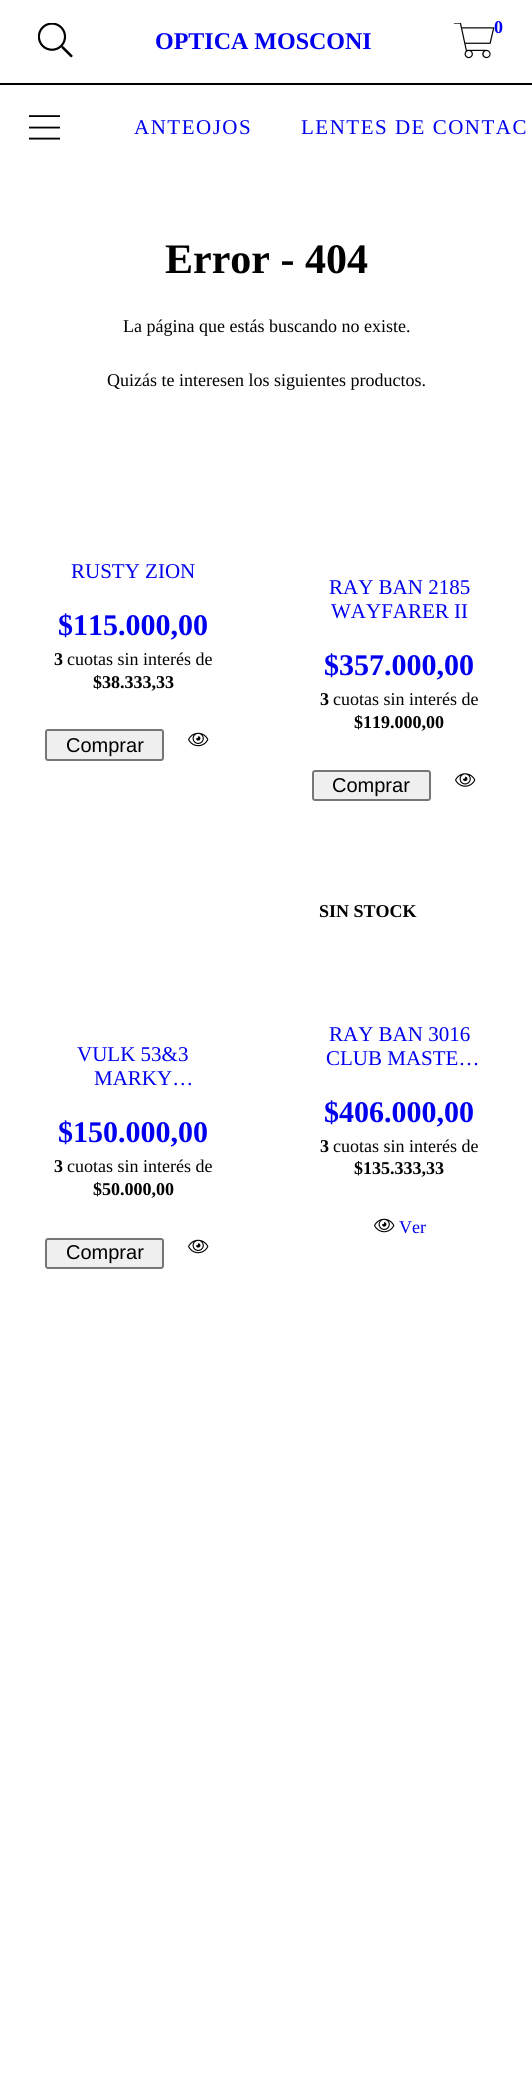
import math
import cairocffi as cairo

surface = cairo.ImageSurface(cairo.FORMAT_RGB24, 532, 2098)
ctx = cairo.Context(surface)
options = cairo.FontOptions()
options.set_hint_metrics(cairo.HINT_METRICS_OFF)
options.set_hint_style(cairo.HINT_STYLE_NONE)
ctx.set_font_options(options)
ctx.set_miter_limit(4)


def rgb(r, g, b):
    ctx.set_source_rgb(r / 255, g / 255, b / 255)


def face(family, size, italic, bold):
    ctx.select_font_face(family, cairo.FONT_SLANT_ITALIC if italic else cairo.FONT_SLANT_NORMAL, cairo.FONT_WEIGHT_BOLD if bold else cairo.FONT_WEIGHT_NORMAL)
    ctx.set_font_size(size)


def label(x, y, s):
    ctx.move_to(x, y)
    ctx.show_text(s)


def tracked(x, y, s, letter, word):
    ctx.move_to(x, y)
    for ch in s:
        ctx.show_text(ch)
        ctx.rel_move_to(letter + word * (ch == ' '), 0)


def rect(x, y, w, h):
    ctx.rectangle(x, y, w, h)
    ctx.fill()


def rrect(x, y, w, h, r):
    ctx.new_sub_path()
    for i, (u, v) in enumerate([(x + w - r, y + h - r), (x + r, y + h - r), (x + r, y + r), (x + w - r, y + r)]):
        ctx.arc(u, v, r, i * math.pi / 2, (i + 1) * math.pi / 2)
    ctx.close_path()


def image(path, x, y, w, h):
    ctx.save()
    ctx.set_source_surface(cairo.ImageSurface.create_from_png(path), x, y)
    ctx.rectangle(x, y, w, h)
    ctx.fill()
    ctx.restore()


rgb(255, 255, 255)
ctx.paint()
image('image0.png', 38, 23, 35, 35)
face('Liberation Serif', 24, 0, 1)
rgb(0, 0, 238)
label(155, 49, 'OPTICA MOSCONI')
image('image1.png', 453, 23, 42, 36)
face('Liberation Serif', 18, 0, 1)
label(494, 33, '0')
rgb(0, 0, 0)
rect(0, 83, 532, 2)
image('image2.png', 29, 115, 31, 25)
face('Liberation Serif', 21, 0, 0)
rgb(0, 0, 238)
tracked(134, 134, 'ANTEOJOS', 1.5, 0)
tracked(301, 134, 'LENTES DE CONTAC', 1.5, 0)
face('Liberation Serif', 42, 0, 1)
rgb(0, 0, 0)
label(165, 273, 'Error - 404')
face('Liberation Serif', 18, 0, 0)
label(123, 332, 'La página que estás buscando no existe.')
label(107, 386, 'Quizás te interesen los siguientes productos.')
face('Liberation Serif', 21, 0, 0)
rgb(0, 0, 238)
label(71, 578, 'RUSTY ZION')
face('Liberation Serif', 30, 0, 1)
label(58, 635, '$115.000,00')
face('Liberation Serif', 18, 0, 1)
rgb(0, 0, 0)
label(54, 665, '3')
face('Liberation Serif', 18, 0, 0)
label(67, 665, 'cuotas sin interés de')
face('Liberation Serif', 18, 0, 1)
label(93, 688, '$38.333,33')
rgb(239, 239, 239)
rrect(46, 730, 117, 30, 2)
ctx.fill_preserve()
rgb(118, 118, 118)
ctx.stroke()
face('Liberation Sans', 20, 0, 0)
rgb(0, 0, 0)
label(66, 752, 'Comprar')
image('image3.png', 188, 732, 21, 15)
face('Liberation Serif', 21, 0, 0)
rgb(0, 0, 238)
label(329, 594, 'RAY BAN 2185')
label(331, 618, 'WAYFARER II')
face('Liberation Serif', 30, 0, 1)
label(324, 675, '$357.000,00')
face('Liberation Serif', 18, 0, 1)
rgb(0, 0, 0)
label(320, 705, '3')
face('Liberation Serif', 18, 0, 0)
label(333, 705, 'cuotas sin interés de')
face('Liberation Serif', 18, 0, 1)
label(354, 728, '$119.000,00')
rgb(239, 239, 239)
rrect(313, 771, 117, 29, 2)
ctx.fill_preserve()
rgb(118, 118, 118)
ctx.stroke()
face('Liberation Sans', 20, 0, 0)
rgb(0, 0, 0)
label(332, 792, 'Comprar')
image('image4.png', 455, 773, 21, 14)
face('Liberation Serif', 21, 0, 0)
rgb(0, 0, 238)
label(77, 1061, 'VULK 53&3')
label(94, 1085, 'MARKY…')
face('Liberation Serif', 30, 0, 1)
label(58, 1142, '$150.000,00')
face('Liberation Serif', 18, 0, 1)
rgb(0, 0, 0)
label(54, 1172, '3')
face('Liberation Serif', 18, 0, 0)
label(67, 1172, 'cuotas sin interés de')
face('Liberation Serif', 18, 0, 1)
label(93, 1195, '$50.000,00')
rgb(239, 239, 239)
rrect(46, 1239, 117, 29, 2)
ctx.fill_preserve()
rgb(118, 118, 118)
ctx.stroke()
face('Liberation Sans', 20, 0, 0)
rgb(0, 0, 0)
label(66, 1259, 'Comprar')
image('image3.png', 188, 1239, 21, 15)
face('Liberation Serif', 18, 0, 1)
label(319, 917, 'SIN STOCK')
face('Liberation Serif', 21, 0, 0)
rgb(0, 0, 238)
label(329, 1041, 'RAY BAN 3016')
label(326, 1065, 'CLUB MASTE…')
face('Liberation Serif', 30, 0, 1)
label(324, 1122, '$406.000,00')
face('Liberation Serif', 18, 0, 1)
rgb(0, 0, 0)
label(320, 1152, '3')
face('Liberation Serif', 18, 0, 0)
label(333, 1152, 'cuotas sin interés de')
face('Liberation Serif', 18, 0, 1)
label(354, 1174, '$135.333,33')
image('image3.png', 374, 1218, 21, 15)
face('Liberation Serif', 18, 0, 0)
rgb(0, 0, 238)
label(399, 1233, 'Ver')
surface.write_to_png('render.png')
